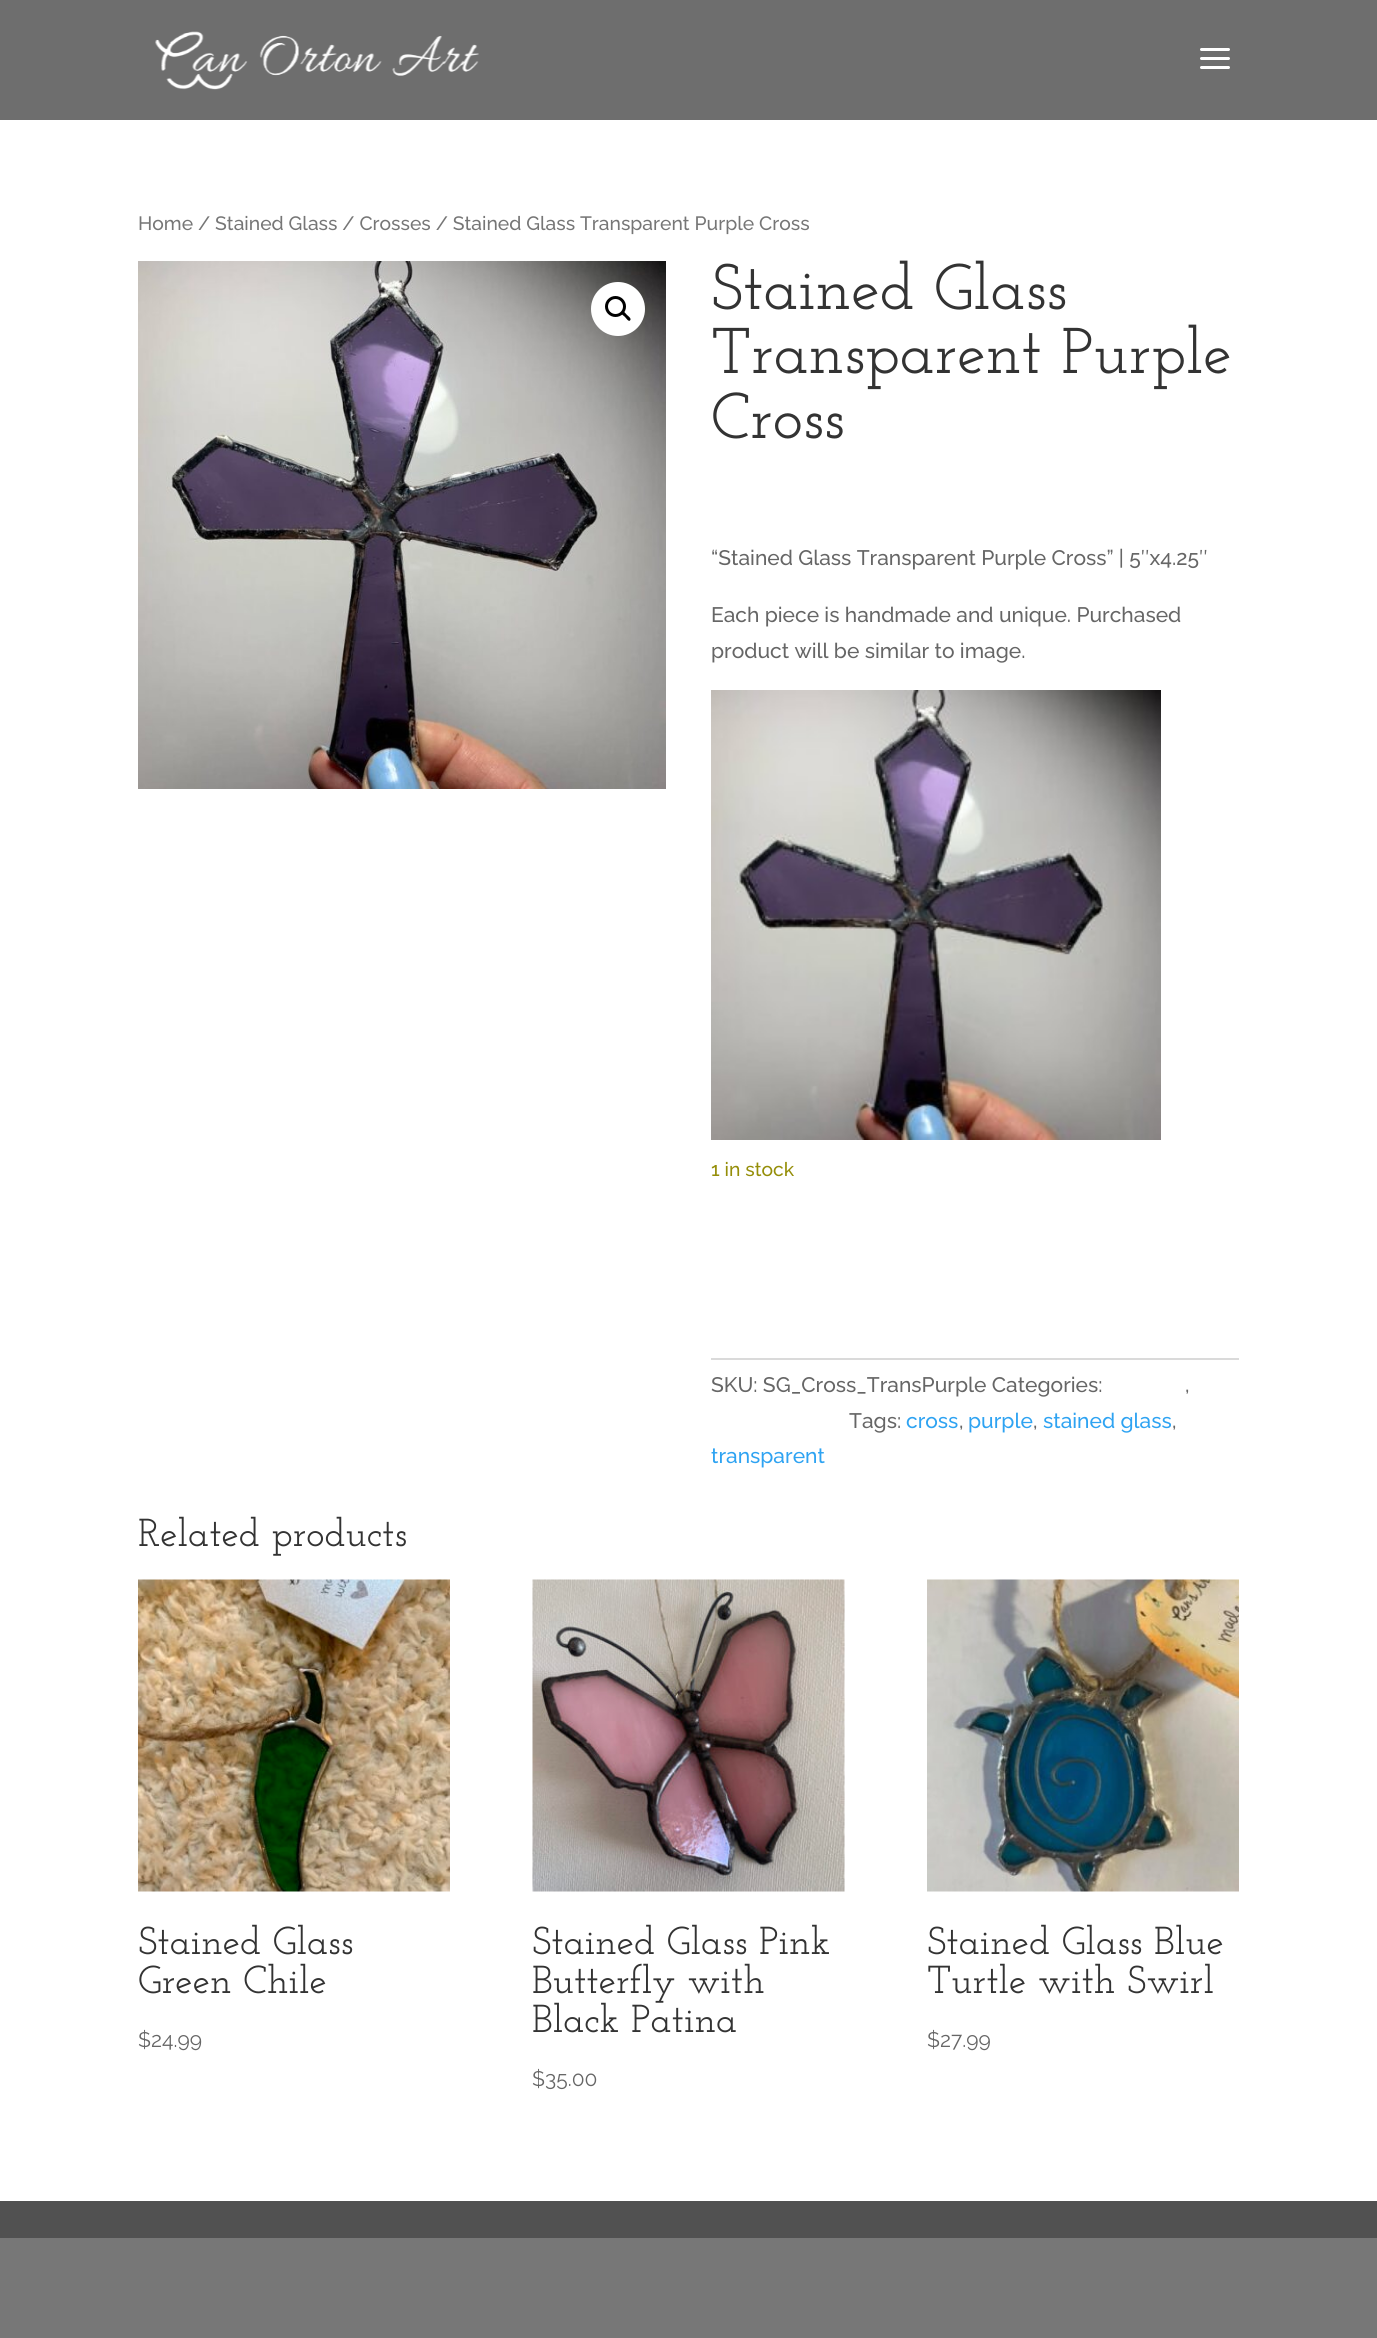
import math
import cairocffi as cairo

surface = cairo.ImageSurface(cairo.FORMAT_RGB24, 1377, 2338)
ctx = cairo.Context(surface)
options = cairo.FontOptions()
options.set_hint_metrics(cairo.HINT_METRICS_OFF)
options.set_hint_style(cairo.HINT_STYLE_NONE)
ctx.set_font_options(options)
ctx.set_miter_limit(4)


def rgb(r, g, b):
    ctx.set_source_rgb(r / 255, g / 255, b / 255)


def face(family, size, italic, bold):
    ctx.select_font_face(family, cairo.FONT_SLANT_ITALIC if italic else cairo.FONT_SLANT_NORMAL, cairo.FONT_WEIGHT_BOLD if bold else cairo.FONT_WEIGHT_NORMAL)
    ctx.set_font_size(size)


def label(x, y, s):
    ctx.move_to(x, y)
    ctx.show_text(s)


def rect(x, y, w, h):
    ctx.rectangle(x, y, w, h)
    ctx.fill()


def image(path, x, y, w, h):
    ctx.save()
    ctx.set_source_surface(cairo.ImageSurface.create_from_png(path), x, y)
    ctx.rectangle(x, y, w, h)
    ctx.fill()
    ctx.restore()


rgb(119, 119, 119)
ctx.paint()
rgb(110, 110, 110)
rect(0, 0, 1377, 120)
image('image0.png', 155, 31, 324, 59)
image('image1.png', 1200, 48, 30, 21)
rgb(255, 255, 255)
rect(0, 120, 1377, 2081)
face('Raleway Thin', 19.3, 0, 0)
rgb(118, 118, 118)
label(138, 230, 'Home / Stained Glass / Crosses / Stained Glass Transparent Purple Cross')
image('image2.png', 138, 261, 528, 528)
rgb(255, 255, 255)
ctx.arc(618, 309, 27, 0, 2 * math.pi)
ctx.fill()
ctx.arc(615.5, 306.5, 9, 0, 2 * math.pi)
rgb(0, 0, 0)
ctx.set_line_width(3)
ctx.stroke()
ctx.new_path()
ctx.move_to(621.5, 312)
ctx.curve_to(623.5, 310, 626, 314, 627, 315)
ctx.curve_to(628, 316, 632, 318.5, 630, 320.5)
ctx.curve_to(628.5, 322, 626, 318, 625, 317)
ctx.curve_to(624, 316, 620, 313.5, 621.5, 312)
ctx.close_path()
ctx.fill()
face('Josefin Slab Thin', 64.5, 0, 0)
rgb(51, 51, 51)
label(711, 309, 'Stained Glass')
label(711, 373, 'Transparent Purple')
label(711, 438, 'Cross')
face('Raleway Thin', 21, 0, 0)
rgb(102, 102, 102)
label(711, 565, '“Stained Glass Transparent Purple Cross” | 5″x4.25″')
label(711, 622, 'Each piece is handmade and unique. Purchased')
label(711, 658, 'product will be similar to image.')
image('image3.png', 711, 690, 450, 450)
face('Raleway Thin', 19.3, 0, 0)
rgb(149, 142, 9)
label(711, 1176, '1 in stock')
rgb(218, 218, 218)
rect(711, 1358, 528, 2)
face('Raleway Thin', 21, 0, 0)
rgb(102, 102, 102)
label(711, 1392, 'SKU: SG_Cross_TransPurple Categories:')
label(1185, 1392, ',')
label(849, 1428, 'Tags:')
rgb(46, 163, 242)
label(906, 1428, 'cross')
rgb(102, 102, 102)
label(959, 1428, ',')
rgb(46, 163, 242)
label(968, 1428, 'purple')
rgb(102, 102, 102)
label(1033, 1428, ',')
rgb(46, 163, 242)
label(1043, 1428, 'stained glass')
rgb(102, 102, 102)
label(1172, 1428, ',')
rgb(46, 163, 242)
label(711, 1463, 'transparent')
face('Josefin Slab Thin', 39, 0, 0)
rgb(51, 51, 51)
label(138, 1546, 'Related products')
image('image4.png', 138, 1579, 312, 313)
label(138, 1954, 'Stained Glass')
label(138, 1993, 'Green Chile')
face('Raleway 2 Thin', 21, 0, 0)
rgb(102, 102, 102)
label(138, 2047, '$24.99')
image('image5.png', 532, 1579, 313, 313)
face('Josefin Slab Thin', 39, 0, 0)
rgb(51, 51, 51)
label(532, 1954, 'Stained Glass Pink')
label(532, 1993, 'Butterfly with')
label(532, 2032, 'Black Patina')
face('Raleway 2 Thin', 21, 0, 0)
rgb(102, 102, 102)
label(532, 2086, '$35.00')
image('image6.png', 927, 1579, 312, 313)
face('Josefin Slab Thin', 39, 0, 0)
rgb(51, 51, 51)
label(927, 1954, 'Stained Glass Blue')
label(927, 1993, 'Turtle with Swirl')
face('Raleway 2 Thin', 21, 0, 0)
rgb(102, 102, 102)
label(927, 2047, '$27.99')
rgb(81, 81, 81)
rect(0, 2201, 1377, 37)
surface.write_to_png('render.png')
